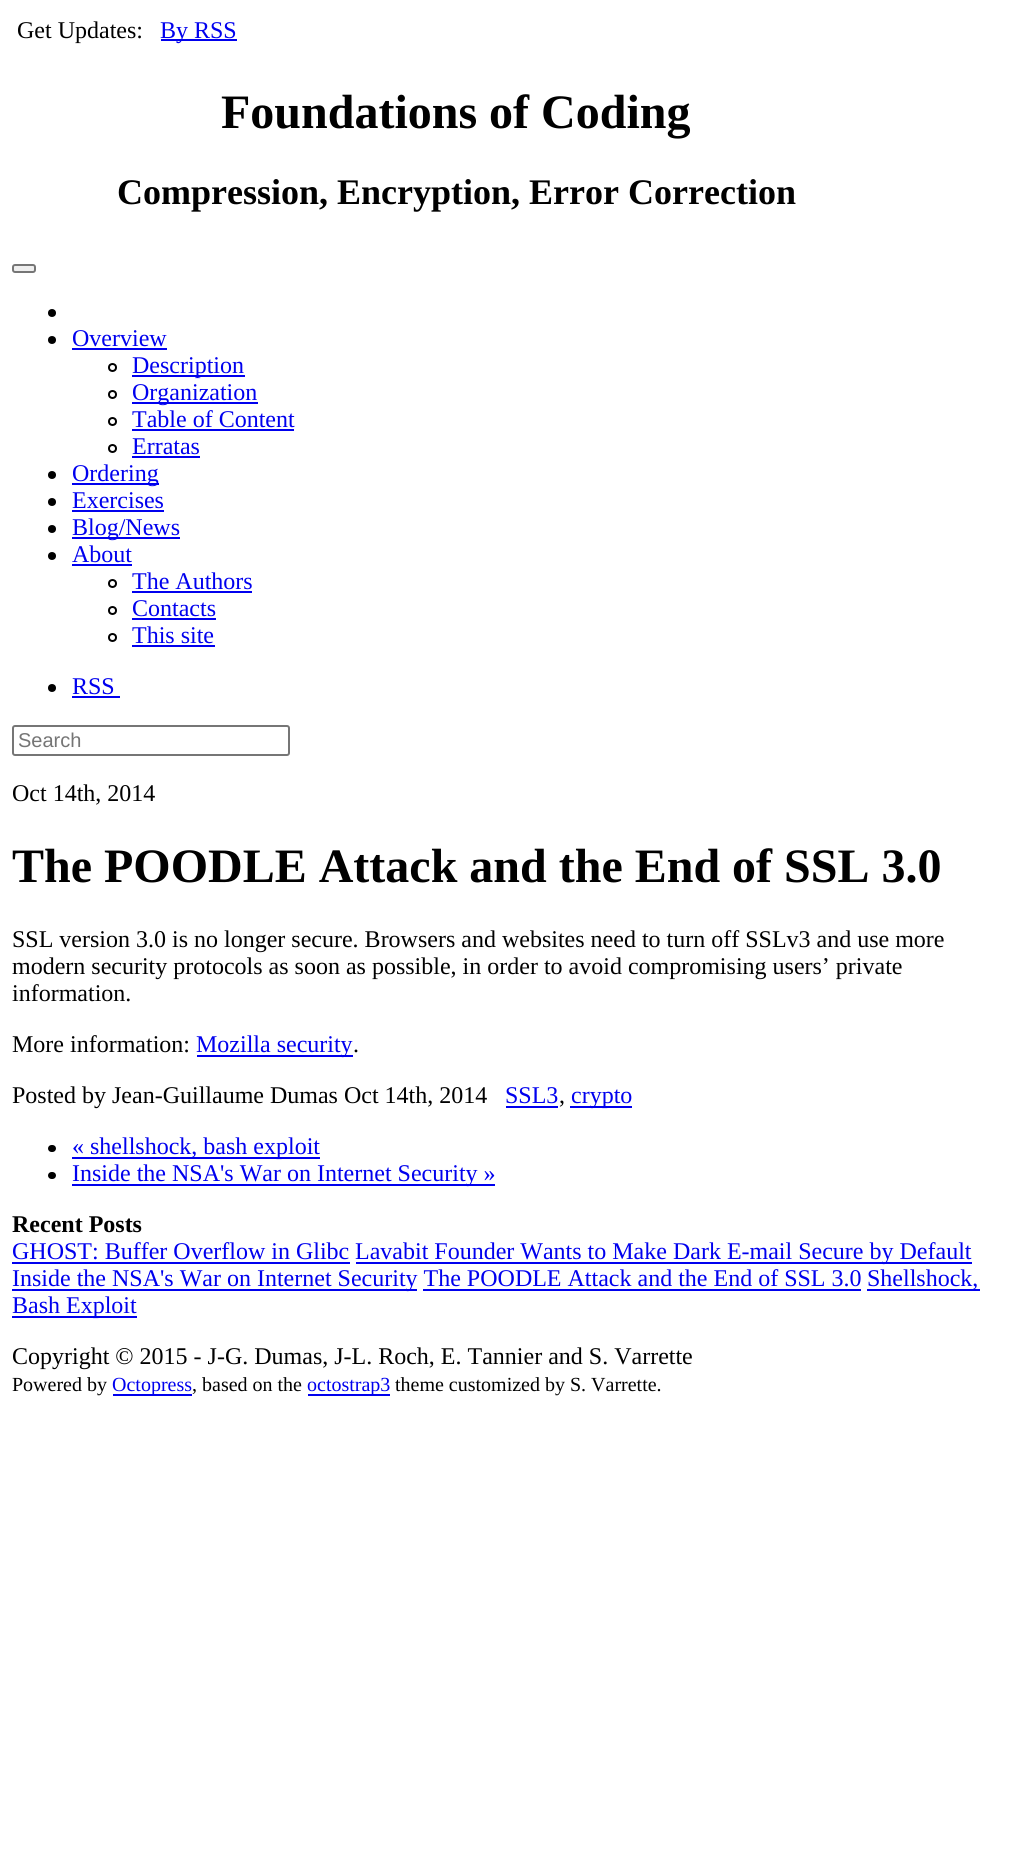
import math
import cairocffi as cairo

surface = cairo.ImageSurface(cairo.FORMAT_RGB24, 1019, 1853)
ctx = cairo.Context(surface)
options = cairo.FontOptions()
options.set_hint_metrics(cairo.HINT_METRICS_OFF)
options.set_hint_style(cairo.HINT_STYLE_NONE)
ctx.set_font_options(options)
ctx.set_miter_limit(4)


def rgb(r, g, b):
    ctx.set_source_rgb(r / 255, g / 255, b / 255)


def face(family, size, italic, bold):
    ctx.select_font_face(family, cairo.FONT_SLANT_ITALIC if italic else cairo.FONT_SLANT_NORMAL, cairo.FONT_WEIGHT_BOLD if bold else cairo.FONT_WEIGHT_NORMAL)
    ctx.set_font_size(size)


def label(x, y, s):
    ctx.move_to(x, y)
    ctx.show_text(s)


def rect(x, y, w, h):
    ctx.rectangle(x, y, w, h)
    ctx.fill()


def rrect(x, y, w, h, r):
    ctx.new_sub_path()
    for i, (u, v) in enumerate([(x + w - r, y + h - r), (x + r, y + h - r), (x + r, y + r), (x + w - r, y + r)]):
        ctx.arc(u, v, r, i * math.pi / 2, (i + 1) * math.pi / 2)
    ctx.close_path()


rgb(255, 255, 255)
ctx.paint()
face('Liberation Serif', 24, 0, 0)
rgb(0, 0, 0)
label(17, 38, 'Get Updates:')
rgb(0, 0, 238)
rect(161, 39, 76, 2)
label(160, 38, 'By RSS')
face('Liberation Serif', 48, 0, 1)
rgb(0, 0, 0)
label(221, 128, 'Foundations of Coding')
face('Liberation Serif', 36, 0, 1)
label(117, 204, 'Compression, Encryption, Error Correction')
rgb(239, 239, 239)
rrect(13, 265, 22, 7, 2)
ctx.fill_preserve()
rgb(118, 118, 118)
ctx.stroke()
rgb(0, 0, 0)
ctx.arc(52, 313, 4, 0, 2 * math.pi)
ctx.fill()
ctx.arc(52, 340, 4, 0, 2 * math.pi)
ctx.fill()
face('Liberation Serif', 24, 0, 0)
rgb(0, 0, 238)
label(72, 346, 'Overview')
rect(72, 348, 95, 2)
ctx.new_path()
ctx.arc(112.5, 367.5, 3.5, 0, 2 * math.pi)
rgb(0, 0, 0)
ctx.stroke()
rgb(0, 0, 238)
rect(132, 375, 113, 2)
label(132, 373, 'Description')
ctx.new_path()
ctx.arc(112.5, 394.5, 3.5, 0, 2 * math.pi)
rgb(0, 0, 0)
ctx.stroke()
rgb(0, 0, 238)
rect(132, 402, 126, 2)
label(132, 400, 'Organization')
ctx.new_path()
ctx.arc(112.5, 421.5, 3.5, 0, 2 * math.pi)
rgb(0, 0, 0)
ctx.stroke()
rgb(0, 0, 238)
label(132, 427, 'Table of Content')
rect(132, 429, 162, 2)
ctx.new_path()
ctx.arc(112.5, 448.5, 3.5, 0, 2 * math.pi)
rgb(0, 0, 0)
ctx.stroke()
rgb(0, 0, 238)
label(132, 454, 'Erratas')
rect(132, 456, 68, 2)
rgb(0, 0, 0)
ctx.new_path()
ctx.arc(52, 475, 4, 0, 2 * math.pi)
ctx.fill()
rgb(0, 0, 238)
rect(72, 483, 87, 2)
label(72, 481, 'Ordering')
rgb(0, 0, 0)
ctx.new_path()
ctx.arc(52, 502, 4, 0, 2 * math.pi)
ctx.fill()
rgb(0, 0, 238)
label(72, 508, 'Exercises')
rect(72, 510, 92, 2)
rgb(0, 0, 0)
ctx.new_path()
ctx.arc(52, 529, 4, 0, 2 * math.pi)
ctx.fill()
rgb(0, 0, 238)
rect(72, 537, 108, 2)
label(72, 535, 'Blog/News')
rgb(0, 0, 0)
ctx.new_path()
ctx.arc(52, 556, 4, 0, 2 * math.pi)
ctx.fill()
rgb(0, 0, 238)
label(72, 562, 'About')
rect(72, 564, 60, 2)
ctx.new_path()
ctx.arc(112.5, 583.5, 3.5, 0, 2 * math.pi)
rgb(0, 0, 0)
ctx.stroke()
rgb(0, 0, 238)
label(132, 589, 'The Authors')
rect(132, 591, 120, 2)
ctx.new_path()
ctx.arc(112.5, 610.5, 3.5, 0, 2 * math.pi)
rgb(0, 0, 0)
ctx.stroke()
rgb(0, 0, 238)
label(132, 616, 'Contacts')
rect(132, 618, 84, 2)
ctx.new_path()
ctx.arc(112.5, 637.5, 3.5, 0, 2 * math.pi)
rgb(0, 0, 0)
ctx.stroke()
rgb(0, 0, 238)
label(132, 643, 'This site')
rect(132, 645, 83, 2)
rgb(0, 0, 0)
ctx.new_path()
ctx.arc(52, 688, 4, 0, 2 * math.pi)
ctx.fill()
rgb(0, 0, 238)
label(72, 694, 'RSS')
rect(72, 696, 48, 2)
rrect(13, 726, 276, 29, 2)
rgb(118, 118, 118)
ctx.stroke()
face('Liberation Sans', 20, 0, 0)
rgb(117, 117, 117)
label(18, 747, 'Search')
face('Liberation Serif', 24, 0, 0)
rgb(0, 0, 0)
label(12, 801, 'Oct 14th, 2014')
face('Liberation Serif', 48, 0, 1)
label(12, 882, 'The POODLE Attack and the End of SSL 3.0')
face('Liberation Serif', 24, 0, 0)
label(12, 947, 'SSL version 3.0 is no longer secure. Browsers and websites need to turn off SSLv3 and use more')
label(12, 974, 'modern security protocols as soon as possible, in order to avoid compromising users’ private')
label(12, 1001, 'information.')
label(12, 1052, 'More information:')
rgb(0, 0, 238)
rect(197, 1055, 156, 2)
label(196, 1052, 'Mozilla security')
rgb(0, 0, 0)
label(353, 1052, '.')
label(12, 1103, 'Posted by Jean-Guillaume Dumas Oct 14th, 2014')
rgb(0, 0, 238)
label(505, 1103, 'SSL3')
rgb(0, 0, 0)
label(559, 1103, ',')
rgb(0, 0, 238)
rect(506, 1106, 52, 2)
rect(570, 1106, 62, 2)
label(571, 1103, 'crypto')
rgb(0, 0, 0)
rrect(48, 1145, 8, 7, 3.5)
ctx.fill()
rgb(0, 0, 238)
rect(72, 1157, 248, 2)
label(72, 1154, '« shellshock, bash exploit')
rgb(0, 0, 0)
rrect(48, 1172, 8, 7, 3.5)
ctx.fill()
rgb(0, 0, 238)
rect(72, 1184, 423, 2)
label(72, 1181, 'Inside the NSA\'s War on Internet Security »')
face('Liberation Serif', 24, 0, 1)
rgb(0, 0, 0)
label(12, 1232, 'Recent Posts')
face('Liberation Serif', 24, 0, 0)
rgb(0, 0, 238)
label(12, 1259, 'GHOST: Buffer Overflow in Glibc')
rect(12, 1262, 338, 2)
rect(356, 1262, 616, 2)
label(355, 1259, 'Lavabit Founder Wants to Make Dark E-mail Secure by Default')
rect(12, 1289, 405, 2)
label(12, 1286, 'Inside the NSA\'s War on Internet Security The POODLE Attack and the End of SSL 3.0')
rect(867, 1289, 113, 2)
label(867, 1286, 'Shellshock,')
rect(423, 1289, 438, 2)
rect(12, 1316, 125, 2)
label(12, 1313, 'Bash Exploit')
rgb(0, 0, 0)
label(12, 1364, 'Copyright © 2015 - J-G. Dumas, J-L. Roch, E. Tannier and S. Varrette')
face('Liberation Serif', 20, 0, 0)
label(12, 1391, 'Powered by')
rgb(0, 0, 238)
rect(113, 1394, 79, 2)
label(112, 1391, 'Octopress')
rgb(0, 0, 0)
label(192, 1391, ', based on the')
rgb(0, 0, 238)
rect(308, 1394, 82, 2)
label(307, 1391, 'octostrap3')
rgb(0, 0, 0)
label(395, 1391, 'theme customized by S. Varrette.')
surface.write_to_png('render.png')
